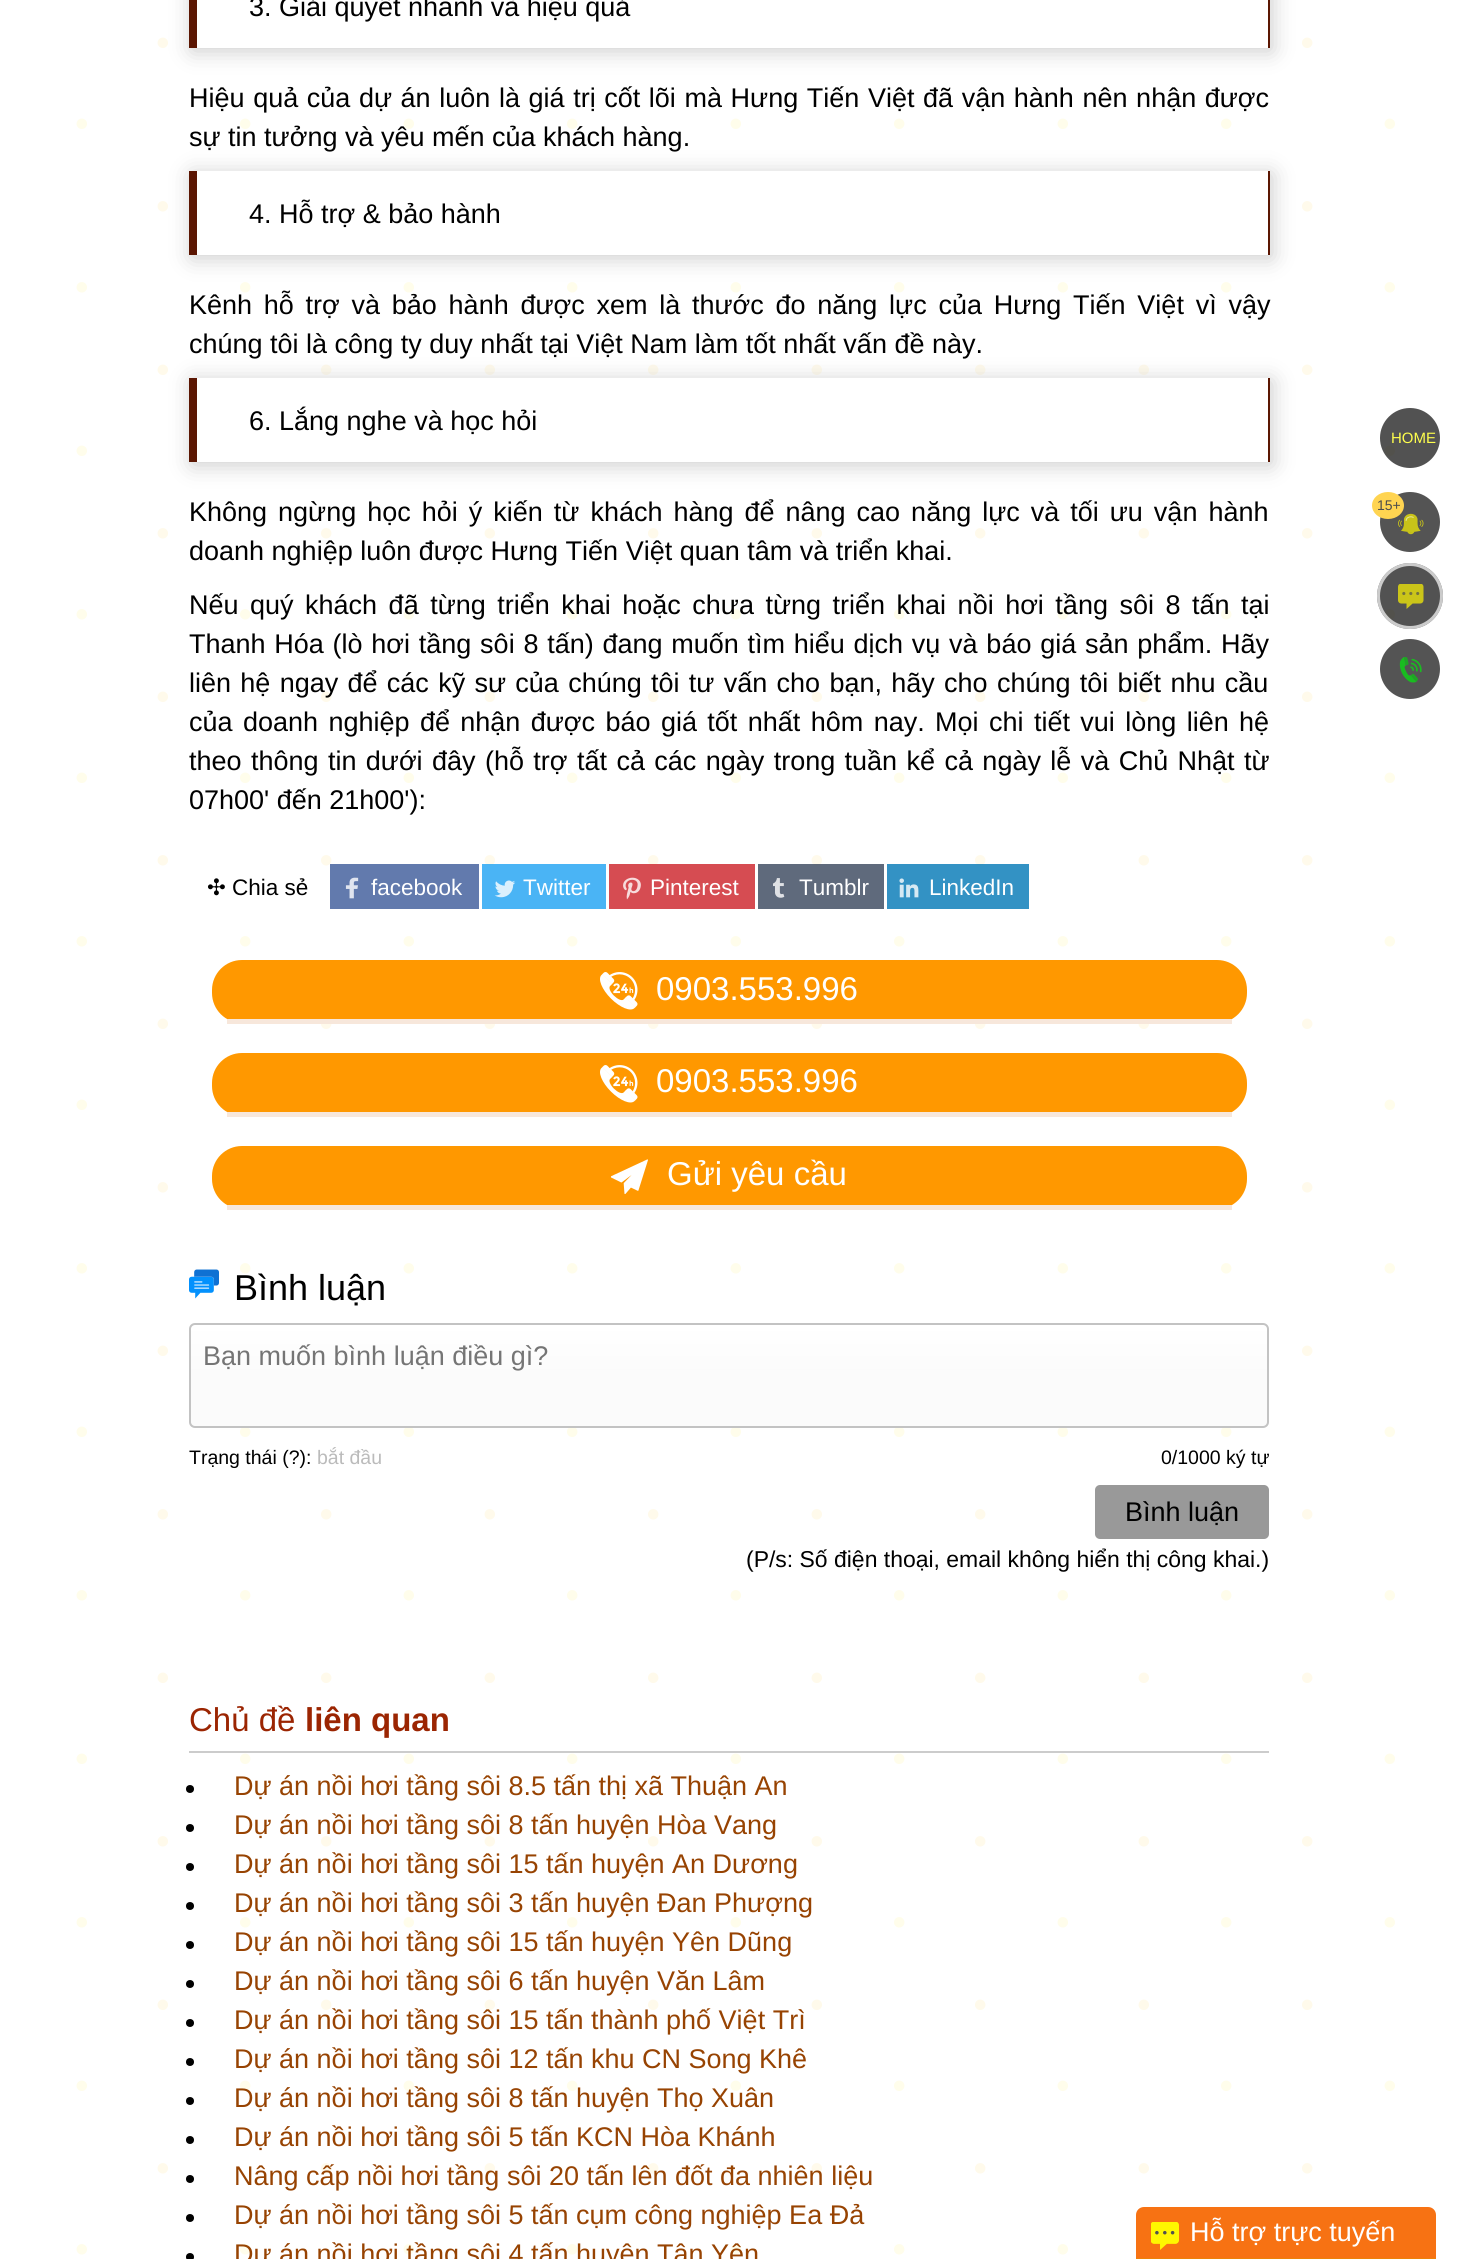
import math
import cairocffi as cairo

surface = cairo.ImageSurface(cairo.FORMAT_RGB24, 1457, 2259)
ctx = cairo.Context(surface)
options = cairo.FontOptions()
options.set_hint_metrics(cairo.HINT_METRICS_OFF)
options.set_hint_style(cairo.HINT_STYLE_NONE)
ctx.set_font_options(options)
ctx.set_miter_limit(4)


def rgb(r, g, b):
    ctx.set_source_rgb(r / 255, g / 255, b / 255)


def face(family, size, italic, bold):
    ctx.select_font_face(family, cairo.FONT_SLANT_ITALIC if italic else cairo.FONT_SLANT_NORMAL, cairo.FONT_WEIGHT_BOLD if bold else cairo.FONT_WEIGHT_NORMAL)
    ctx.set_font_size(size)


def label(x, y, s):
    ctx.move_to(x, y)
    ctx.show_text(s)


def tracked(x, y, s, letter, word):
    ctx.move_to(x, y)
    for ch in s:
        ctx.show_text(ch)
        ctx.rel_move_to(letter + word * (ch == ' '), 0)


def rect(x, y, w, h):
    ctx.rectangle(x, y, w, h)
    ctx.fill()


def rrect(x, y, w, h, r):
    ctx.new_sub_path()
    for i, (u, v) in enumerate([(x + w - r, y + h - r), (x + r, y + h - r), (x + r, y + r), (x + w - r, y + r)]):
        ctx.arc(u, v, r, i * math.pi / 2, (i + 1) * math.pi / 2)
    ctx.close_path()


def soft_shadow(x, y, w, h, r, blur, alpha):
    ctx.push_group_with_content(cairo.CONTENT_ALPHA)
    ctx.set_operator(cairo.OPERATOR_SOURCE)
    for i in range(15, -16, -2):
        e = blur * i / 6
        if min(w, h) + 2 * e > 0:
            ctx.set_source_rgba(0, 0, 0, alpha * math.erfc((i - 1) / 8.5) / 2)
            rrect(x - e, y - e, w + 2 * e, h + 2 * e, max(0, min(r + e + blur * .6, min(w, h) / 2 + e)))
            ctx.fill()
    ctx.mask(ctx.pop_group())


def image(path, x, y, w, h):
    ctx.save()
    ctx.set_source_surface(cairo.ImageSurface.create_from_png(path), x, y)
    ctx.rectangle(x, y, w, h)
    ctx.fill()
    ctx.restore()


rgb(255, 255, 255)
ctx.paint()
ctx.new_path()
ctx.move_to(81.8, 123.8)
ctx.line_to(81.8, 2249.6)
rgb(255, 253, 235)
ctx.set_line_width(10.5)
ctx.set_line_cap(cairo.LINE_CAP_ROUND)
ctx.set_dash([0, 163.5])
ctx.stroke()
ctx.new_path()
ctx.move_to(245.2, 123.8)
ctx.line_to(245.2, 2249.6)
ctx.stroke()
ctx.new_path()
ctx.move_to(408.8, 123.8)
ctx.line_to(408.8, 2249.6)
ctx.stroke()
ctx.new_path()
ctx.move_to(572.2, 123.8)
ctx.line_to(572.2, 2249.6)
ctx.stroke()
ctx.new_path()
ctx.move_to(735.8, 123.8)
ctx.line_to(735.8, 2249.6)
ctx.stroke()
ctx.new_path()
ctx.move_to(899.2, 123.8)
ctx.line_to(899.2, 2249.6)
ctx.stroke()
ctx.new_path()
ctx.move_to(1062.8, 123.8)
ctx.line_to(1062.8, 2249.6)
ctx.stroke()
ctx.new_path()
ctx.move_to(1226.2, 123.8)
ctx.line_to(1226.2, 2249.6)
ctx.stroke()
ctx.new_path()
ctx.move_to(1389.8, 123.8)
ctx.line_to(1389.8, 2249.6)
ctx.stroke()
ctx.new_path()
ctx.move_to(162.8, 42.8)
ctx.line_to(162.8, 2168.6)
rgb(255, 250, 235)
ctx.stroke()
ctx.new_path()
ctx.move_to(326.2, 42.8)
ctx.line_to(326.2, 2168.6)
ctx.stroke()
ctx.new_path()
ctx.move_to(489.8, 42.8)
ctx.line_to(489.8, 2168.6)
ctx.stroke()
ctx.new_path()
ctx.move_to(653.2, 42.8)
ctx.line_to(653.2, 2168.6)
ctx.stroke()
ctx.new_path()
ctx.move_to(816.8, 42.8)
ctx.line_to(816.8, 2168.6)
ctx.stroke()
ctx.new_path()
ctx.move_to(980.2, 42.8)
ctx.line_to(980.2, 2168.6)
ctx.stroke()
ctx.new_path()
ctx.move_to(1143.8, 42.8)
ctx.line_to(1143.8, 2168.6)
ctx.stroke()
ctx.new_path()
ctx.move_to(1307.2, 42.8)
ctx.line_to(1307.2, 2168.6)
ctx.stroke()
rgb(204, 204, 204)
soft_shadow(192, -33, 1080, 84, 0, 11, 1)
rgb(255, 255, 255)
rect(197, 0, 1071, 48)
rgb(91, 22, 2)
rect(1268, 0, 2, 48)
rect(189, 0, 8, 48)
face('Liberation Sans', 27, 0, 0)
rgb(0, 0, 0)
label(249, 16, '3. Giải quyết nhanh và hiệu quả')
tracked(189, 107, 'Hiệu quả của dự án luôn là giá trị cốt lõi mà Hưng Tiến Việt đã vận hành nên nhận được', 0, 1.1)
label(189, 146, 'sự tin tưởng và yêu mến của khách hàng.')
rgb(204, 204, 204)
soft_shadow(192, 174, 1080, 84, 0, 11, 1)
rgb(255, 255, 255)
rect(197, 171, 1071, 84)
rgb(91, 22, 2)
rect(1268, 171, 2, 84)
rect(189, 171, 8, 84)
rgb(0, 0, 0)
label(249, 223, '4. Hỗ trợ & bảo hành')
tracked(189, 314, 'Kênh hỗ trợ và bảo hành được xem là thước đo năng lực của Hưng Tiến Việt vì vậy', 0, 4.25)
label(189, 353, 'chúng tôi là công ty duy nhất tại Việt Nam làm tốt nhất vấn đề này.')
rgb(204, 204, 204)
soft_shadow(192, 381, 1080, 84, 0, 11, 1)
rgb(255, 255, 255)
rect(197, 378, 1071, 84)
rgb(91, 22, 2)
rect(1268, 378, 2, 84)
rect(189, 378, 8, 84)
rgb(0, 0, 0)
label(249, 430, '6. Lắng nghe và học hỏi')
tracked(189, 521, 'Không ngừng học hỏi ý kiến từ khách hàng để nâng cao năng lực và tối ưu vận hành', 0, 3.5)
label(189, 560, 'doanh nghiệp luôn được Hưng Tiến Việt quan tâm và triển khai.')
tracked(189, 614, 'Nếu quý khách đã từng triển khai hoặc chưa từng triển khai nồi hơi tầng sôi 8 tấn tại', 0, 4)
tracked(189, 653, 'Thanh Hóa (lò hơi tầng sôi 8 tấn) đang muốn tìm hiểu dịch vụ và báo giá sản phẩm. Hãy', 0, 1.25)
tracked(189, 692, 'liên hệ ngay để các kỹ sư của chúng tôi tư vấn cho bạn, hãy cho chúng tôi biết nhu cầu', 0, 1.8)
tracked(189, 731, 'của doanh nghiệp để nhận được báo giá tốt nhất hôm nay. Mọi chi tiết vui lòng liên hệ', 0, 2.9)
tracked(189, 770, 'theo thông tin dưới đây (hỗ trợ tất cả các ngày trong tuần kể cả ngày lễ và Chủ Nhật từ', 0, 1.9)
label(189, 809, '07h00\' đến 21h00\'):')
face('DejaVu Sans', 22.5, 0, 0)
label(207, 895, '✣')
face('Liberation Sans', 22.5, 0, 0)
label(232, 895, 'Chia sẻ')
rgb(98, 122, 173)
rect(330, 864, 149, 45)
image('image0.png', 345, 877, 14, 22)
rgb(255, 255, 255)
label(371, 895, 'facebook')
ctx.set_source_rgba(0.114, 0.631, 0.949, 0.8)
rect(482, 864, 124, 45)
image('image1.png', 494, 880, 22, 18)
rgb(255, 255, 255)
label(523, 895, 'Twitter')
ctx.set_source_rgba(0.796, 0.125, 0.153, 0.8)
rect(609, 864, 146, 45)
image('image2.png', 623, 877, 18, 23)
rgb(255, 255, 255)
label(650, 895, 'Pinterest')
ctx.set_source_rgba(0.216, 0.271, 0.361, 0.8)
rect(758, 864, 126, 45)
image('image3.png', 773, 878, 12, 20)
rgb(255, 255, 255)
label(799, 895, 'Tumblr')
ctx.set_source_rgba(0, 0.467, 0.71, 0.8)
rect(887, 864, 142, 45)
image('image4.png', 899, 878, 20, 20)
rgb(255, 255, 255)
label(929, 895, 'LinkedIn')
rgb(255, 152, 0)
rrect(212, 960, 1035, 63, 30)
ctx.fill()
rgb(247, 231, 219)
rect(227, 1019, 1005, 5)
image('image5.png', 600, 972, 38, 38)
face('Liberation Sans', 33, 0, 0)
rgb(255, 255, 255)
label(656, 1000, '0903.553.996')
rgb(255, 152, 0)
rrect(212, 1053, 1035, 63, 30)
ctx.fill()
rgb(247, 231, 219)
rect(227, 1112, 1005, 5)
image('image5.png', 600, 1065, 38, 38)
rgb(255, 255, 255)
label(656, 1092, '0903.553.996')
rgb(255, 152, 0)
rrect(212, 1146, 1035, 63, 30)
ctx.fill()
rgb(247, 231, 219)
rect(227, 1205, 1005, 5)
image('image6.png', 611, 1159, 37, 35)
rgb(255, 255, 255)
label(667, 1185, 'Gửi yêu cầu')
image('image7.png', 189, 1269, 30, 30)
face('Liberation Sans', 36, 0, 0)
rgb(0, 0, 0)
label(234, 1300, 'Bình luận')
ctx.save()
rrect(189, 1323, 1080, 105, 6)
ctx.clip()
gradient = cairo.LinearGradient(729, 1325, 729, 1427)
gradient.add_color_stop_rgba(0, 1, 1, 1, 1)
gradient.add_color_stop_rgba(0.5, 0.984, 0.984, 0.984, 1)
gradient.add_color_stop_rgba(1, 0.984, 0.984, 0.984, 1)
ctx.set_source(gradient)
rect(189, 1325, 1080, 102)
ctx.restore()
rrect(190, 1324, 1078, 103, 5)
rgb(195, 195, 195)
ctx.set_line_width(2)
ctx.set_line_cap(cairo.LINE_CAP_BUTT)
ctx.set_dash([])
ctx.stroke()
face('Liberation Sans', 27, 0, 0)
rgb(117, 117, 117)
label(203, 1365, 'Bạn muốn bình luận điều gì?')
face('Liberation Sans', 19.5, 0, 0)
rgb(0, 0, 0)
label(189, 1464, 'Trạng thái (?):')
rgb(187, 187, 187)
label(317, 1464, 'bắt đầu')
rgb(0, 0, 0)
label(1161, 1464, '0/1000 ký tự')
rgb(153, 153, 153)
rrect(1095, 1485, 174, 54, 5)
ctx.fill()
face('Liberation Sans', 27, 0, 0)
rgb(0, 0, 0)
label(1125, 1521, 'Bình luận')
face('Liberation Sans', 22.95, 0, 0)
label(746, 1567, '(P/s: Số điện thoại, email không hiển thị công khai.)')
rgb(204, 204, 204)
rect(189, 1751, 1080, 2)
face('Liberation Sans', 33, 0, 0)
rgb(155, 37, 2)
label(189, 1731, 'Chủ đề')
face('Liberation Sans', 33, 0, 1)
label(305, 1731, 'liên quan')
rgb(0, 0, 0)
ctx.new_path()
ctx.arc(190, 1789, 4, 0, 2 * math.pi)
ctx.fill()
face('Liberation Sans', 27, 0, 0)
rgb(151, 67, 2)
label(234, 1795, 'Dự án nồi hơi tầng sôi 8.5 tấn thị xã Thuận An')
rgb(0, 0, 0)
ctx.new_path()
ctx.arc(190, 1828, 4, 0, 2 * math.pi)
ctx.fill()
rgb(151, 67, 2)
label(234, 1834, 'Dự án nồi hơi tầng sôi 8 tấn huyện Hòa Vang')
rgb(0, 0, 0)
ctx.new_path()
ctx.arc(190, 1867, 4, 0, 2 * math.pi)
ctx.fill()
rgb(151, 67, 2)
label(234, 1873, 'Dự án nồi hơi tầng sôi 15 tấn huyện An Dương')
rgb(0, 0, 0)
ctx.new_path()
ctx.arc(190, 1906, 4, 0, 2 * math.pi)
ctx.fill()
rgb(151, 67, 2)
label(234, 1912, 'Dự án nồi hơi tầng sôi 3 tấn huyện Đan Phượng')
rgb(0, 0, 0)
ctx.new_path()
ctx.arc(190, 1945, 4, 0, 2 * math.pi)
ctx.fill()
rgb(151, 67, 2)
label(234, 1951, 'Dự án nồi hơi tầng sôi 15 tấn huyện Yên Dũng')
rgb(0, 0, 0)
ctx.new_path()
ctx.arc(190, 1984, 4, 0, 2 * math.pi)
ctx.fill()
rgb(151, 67, 2)
label(234, 1990, 'Dự án nồi hơi tầng sôi 6 tấn huyện Văn Lâm')
rgb(0, 0, 0)
ctx.new_path()
ctx.arc(190, 2023, 4, 0, 2 * math.pi)
ctx.fill()
rgb(151, 67, 2)
label(234, 2029, 'Dự án nồi hơi tầng sôi 15 tấn thành phố Việt Trì')
rgb(0, 0, 0)
ctx.new_path()
ctx.arc(190, 2062, 4, 0, 2 * math.pi)
ctx.fill()
rgb(151, 67, 2)
label(234, 2068, 'Dự án nồi hơi tầng sôi 12 tấn khu CN Song Khê')
rgb(0, 0, 0)
ctx.new_path()
ctx.arc(190, 2101, 4, 0, 2 * math.pi)
ctx.fill()
rgb(151, 67, 2)
label(234, 2107, 'Dự án nồi hơi tầng sôi 8 tấn huyện Thọ Xuân')
rgb(0, 0, 0)
ctx.new_path()
ctx.arc(190, 2140, 4, 0, 2 * math.pi)
ctx.fill()
rgb(151, 67, 2)
label(234, 2146, 'Dự án nồi hơi tầng sôi 5 tấn KCN Hòa Khánh')
rgb(0, 0, 0)
ctx.new_path()
ctx.arc(190, 2179, 4, 0, 2 * math.pi)
ctx.fill()
rgb(151, 67, 2)
label(234, 2185, 'Nâng cấp nồi hơi tầng sôi 20 tấn lên đốt đa nhiên liệu')
rgb(0, 0, 0)
ctx.new_path()
ctx.arc(190, 2218, 4, 0, 2 * math.pi)
ctx.fill()
rgb(151, 67, 2)
label(234, 2224, 'Dự án nồi hơi tầng sôi 5 tấn cụm công nghiệp Ea Đả')
rgb(0, 0, 0)
ctx.new_path()
ctx.arc(190, 2257, 4, 0, 2 * math.pi)
ctx.fill()
rgb(151, 67, 2)
label(234, 2263, 'Dự án nồi hơi tầng sôi 4 tấn huyện Tân Yên')
ctx.set_source_rgba(0.039, 0.039, 0.039, 0.7)
ctx.new_path()
ctx.arc(1410, 438, 31.5, 0, 2 * math.pi)
ctx.fill_preserve()
rgb(255, 255, 255)
ctx.set_line_width(3)
ctx.stroke()
face('Liberation Sans', 15, 0, 0)
rgb(255, 255, 77)
label(1391, 443, 'HOME')
rgb(84, 84, 84)
ctx.new_path()
ctx.arc(1410, 522, 31.5, 0, 2 * math.pi)
ctx.fill_preserve()
rgb(255, 255, 255)
ctx.stroke()
image('image8.png', 1398, 513, 26, 22)
rgb(255, 212, 81)
ctx.new_path()
ctx.move_to(1388, 492)
ctx.curve_to(1397, 492, 1404, 498, 1404, 505.5)
ctx.curve_to(1404, 513, 1397, 519, 1388, 519)
ctx.curve_to(1379, 519, 1372, 513, 1372, 505.5)
ctx.curve_to(1372, 498, 1379, 492, 1388, 492)
ctx.close_path()
ctx.fill()
face('Liberation Sans', 14, 0, 0)
rgb(77, 77, 77)
label(1377, 510, '15+')
ctx.set_source_rgba(0.039, 0.039, 0.039, 0.7)
ctx.new_path()
ctx.arc(1410, 596, 33, 0, 2 * math.pi)
ctx.fill()
ctx.arc(1410, 596, 31.5, 0, 2 * math.pi)
ctx.set_source_rgba(1, 1, 1, 0.7)
ctx.stroke()
image('image9.png', 1398, 584, 26, 25)
rgb(84, 84, 84)
ctx.arc(1410, 669, 31.5, 0, 2 * math.pi)
ctx.fill_preserve()
rgb(255, 255, 255)
ctx.stroke()
image('image10.png', 1399, 657, 23, 26)
rgb(247, 114, 19)
ctx.new_path()
ctx.move_to(1144, 2207)
ctx.line_to(1428, 2207)
ctx.curve_to(1432.5, 2207, 1436, 2210.5, 1436, 2215)
ctx.line_to(1436, 2259)
ctx.line_to(1136, 2259)
ctx.line_to(1136, 2215)
ctx.curve_to(1136, 2210.5, 1139.5, 2207, 1144, 2207)
ctx.close_path()
ctx.fill()
rgb(236, 130, 9)
rect(1136, 2258, 300, 1)
image('image11.png', 1151, 2222, 28, 28)
face('Liberation Sans', 27, 0, 0)
rgb(255, 255, 255)
label(1190, 2241, 'Hỗ trợ trực tuyến')
surface.write_to_png('render.png')
